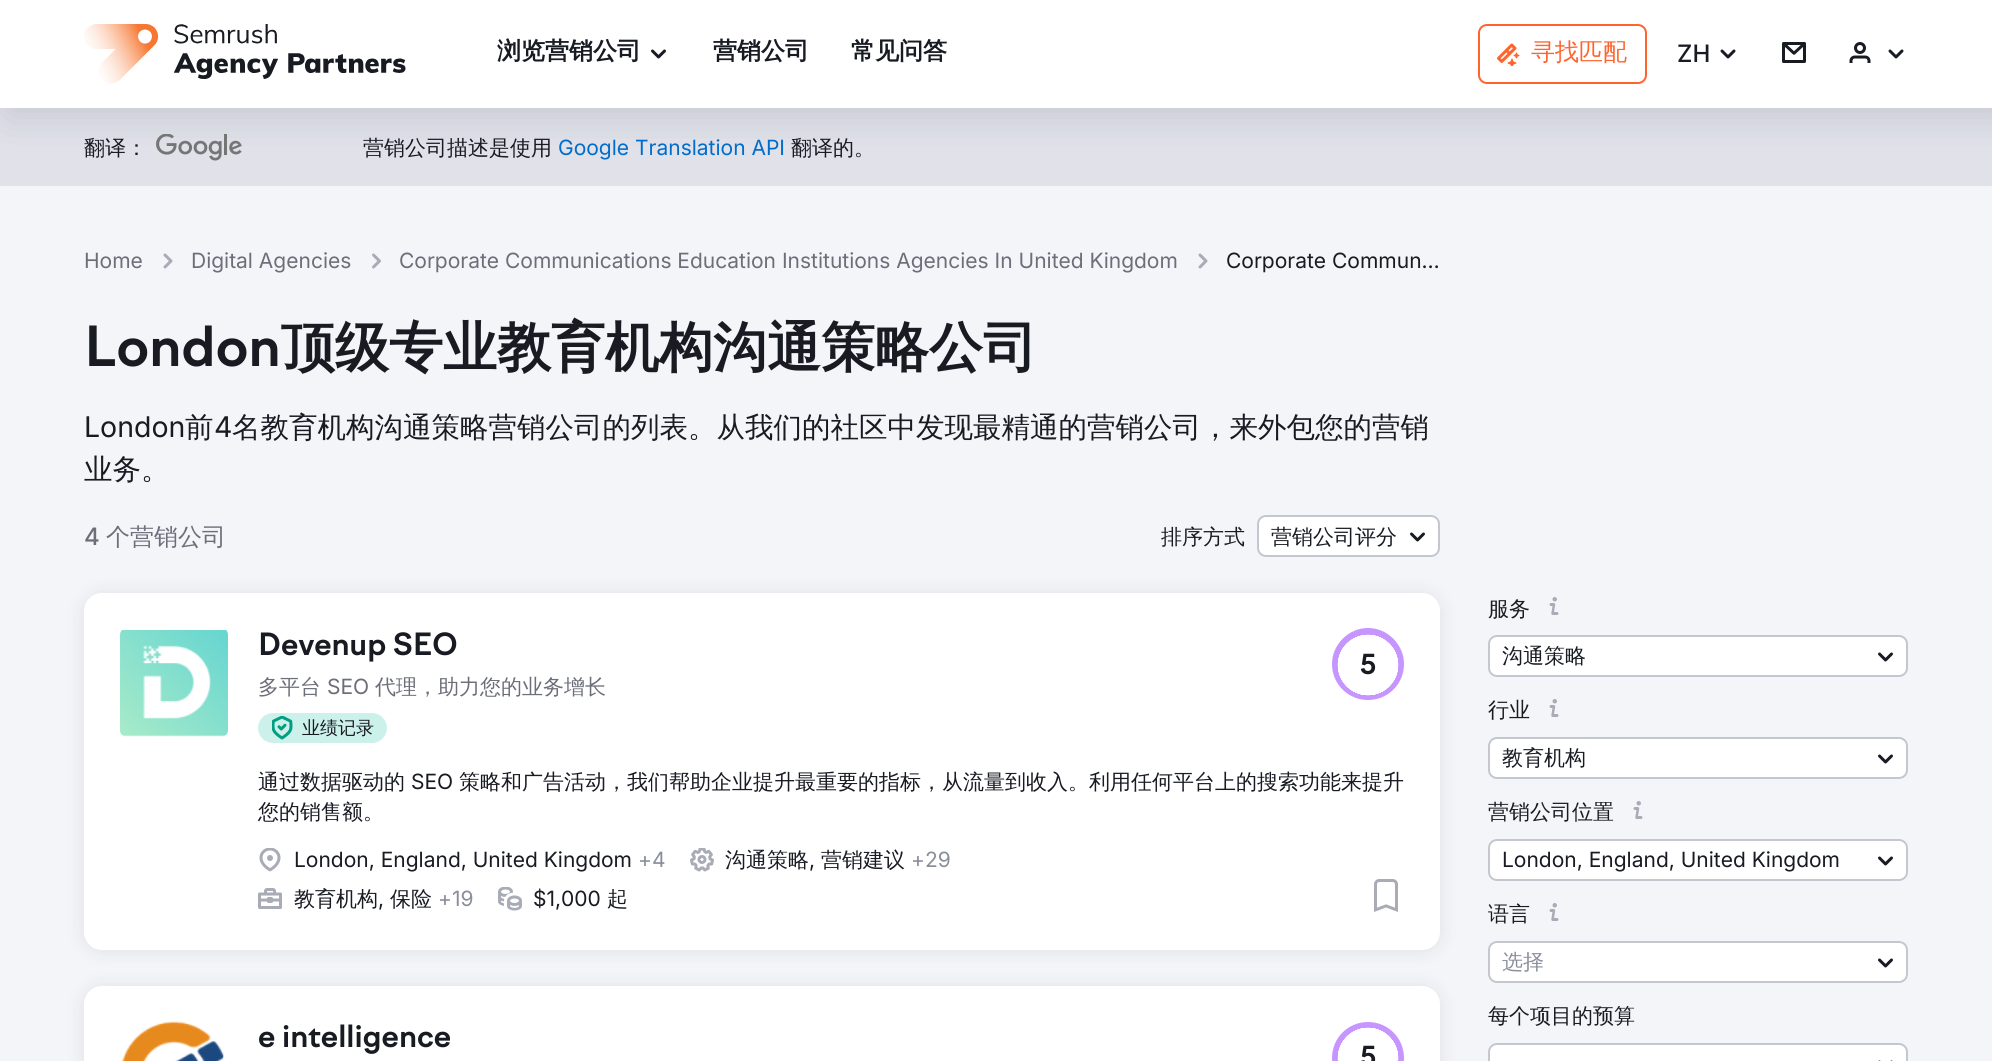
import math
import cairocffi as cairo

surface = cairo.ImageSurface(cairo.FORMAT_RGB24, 1992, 1061)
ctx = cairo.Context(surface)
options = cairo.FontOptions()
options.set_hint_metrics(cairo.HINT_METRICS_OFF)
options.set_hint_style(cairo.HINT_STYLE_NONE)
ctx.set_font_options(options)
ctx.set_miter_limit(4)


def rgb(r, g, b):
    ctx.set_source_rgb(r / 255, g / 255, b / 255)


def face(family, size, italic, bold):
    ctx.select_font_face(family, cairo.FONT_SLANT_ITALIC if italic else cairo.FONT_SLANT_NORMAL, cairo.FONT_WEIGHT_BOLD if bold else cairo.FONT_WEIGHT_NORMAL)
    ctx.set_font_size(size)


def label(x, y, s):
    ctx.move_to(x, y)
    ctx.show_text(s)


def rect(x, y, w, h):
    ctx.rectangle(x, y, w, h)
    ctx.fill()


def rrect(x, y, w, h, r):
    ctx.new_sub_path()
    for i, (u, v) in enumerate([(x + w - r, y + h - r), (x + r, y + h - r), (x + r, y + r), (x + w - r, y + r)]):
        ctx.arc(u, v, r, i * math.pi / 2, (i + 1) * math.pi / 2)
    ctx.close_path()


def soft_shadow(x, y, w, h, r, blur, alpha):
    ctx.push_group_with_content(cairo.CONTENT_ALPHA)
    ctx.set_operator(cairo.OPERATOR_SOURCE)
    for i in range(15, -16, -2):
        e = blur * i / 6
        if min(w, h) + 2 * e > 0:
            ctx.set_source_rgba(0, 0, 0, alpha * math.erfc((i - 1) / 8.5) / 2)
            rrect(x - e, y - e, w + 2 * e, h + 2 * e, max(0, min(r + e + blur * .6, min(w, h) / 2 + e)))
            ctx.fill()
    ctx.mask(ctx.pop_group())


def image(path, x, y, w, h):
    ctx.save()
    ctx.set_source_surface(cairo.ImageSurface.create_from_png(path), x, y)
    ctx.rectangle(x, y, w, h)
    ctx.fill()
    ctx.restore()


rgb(255, 255, 255)
ctx.paint()
rgb(224, 225, 233)
rect(0, 108, 1992, 78)
image('image6.png', 156, 134, 86, 27)
ctx.save()
ctx.rectangle(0, 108, 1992, 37)
ctx.clip()
rgb(137, 141, 154)
soft_shadow(8, 8, 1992, 108, 0, 19, 0.3)
ctx.restore()
image('image0.png', 84, 24, 322, 60)
face('WenQuanYi Zen Hei', 24, 0, 1)
rgb(25, 27, 35)
label(497, 59, '浏览营销公司')
image('image1.png', 651, 49, 15, 10)
label(713, 59, '营销公司')
label(851, 59, '常见问答')
rrect(1479, 25, 167, 58, 8)
rgb(255, 100, 45)
ctx.stroke()
image('image2.png', 1497, 43, 23, 23)
face('WenQuanYi Zen Hei Medium', 24, 0, 0)
label(1531, 60, '寻找匹配')
face('Inter Medium', 24, 0, 0)
rgb(25, 27, 35)
label(1677, 62, 'ZH')
image('image3.png', 1720, 49, 16, 10)
image('image4.png', 1782, 42, 24, 21)
image('image5.png', 1849, 42, 22, 21)
image('image3.png', 1888, 49, 16, 10)
face('WenQuanYi Zen Hei Medium', 21, 0, 0)
label(84, 155, '翻译：')
label(363, 155, '营销公司描述是使用')
face('Inter', 21, 0, 0)
rgb(0, 109, 202)
label(558, 155, 'Google Translation API')
face('WenQuanYi Zen Hei Medium', 21, 0, 0)
rgb(25, 27, 35)
label(791, 155, '翻译的。')
rgb(244, 245, 249)
rect(0, 186, 1992, 875)
face('Inter', 21, 0, 0)
rgb(108, 110, 121)
label(84, 268, 'Home')
image('image7.png', 163, 253, 10, 16)
label(191, 268, 'Digital Agencies')
image('image8.png', 372, 253, 9, 16)
label(399, 268, 'Corporate Communications Education Institutions Agencies In United Kingdom')
image('image7.png', 1198, 253, 10, 16)
rgb(25, 27, 35)
label(1226, 268, 'Corporate Commun…')
face('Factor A', 54, 0, 1)
label(84, 366, 'London')
face('WenQuanYi Zen Hei', 54, 0, 1)
label(281, 366, '顶级专业教育机构沟通策略公司')
face('Inter', 28.5, 0, 0)
label(84, 437, 'London')
face('WenQuanYi Zen Hei Medium', 28.5, 0, 0)
label(185, 437, '前')
face('Inter', 28.5, 0, 0)
label(214, 437, '4')
face('WenQuanYi Zen Hei Medium', 28.5, 0, 0)
label(232, 437, '名教育机构沟通策略营销公司的列表。从我们的社区中发现最精通的营销公司，来外包您的营销')
label(84, 479, '业务。')
face('Inter Medium', 24, 0, 0)
rgb(108, 110, 121)
label(84, 545, '4')
face('WenQuanYi Zen Hei Medium', 24, 0, 0)
label(106, 545, '个营销公司')
face('WenQuanYi Zen Hei Medium', 21, 0, 0)
rgb(25, 27, 35)
label(1161, 544, '排序方式')
rgb(255, 255, 255)
rrect(1258, 516, 181, 40, 8)
ctx.fill_preserve()
rgb(196, 199, 207)
ctx.stroke()
rgb(25, 27, 35)
label(1271, 544, '营销公司评分')
image('image1.png', 1410, 532, 15, 10)
rgb(25, 27, 35)
soft_shadow(84, 594, 1356, 357, 18, 9, 0.1)
rgb(255, 255, 255)
rrect(84, 593, 1356, 357, 18)
ctx.fill()
image('image9.png', 120, 630, 108, 107)
face('Factor A', 30, 0, 1)
rgb(25, 27, 35)
label(258, 655, 'Devenup SEO')
face('WenQuanYi Zen Hei Medium', 21, 0, 0)
rgb(108, 110, 121)
label(258, 694, '多平台')
face('Inter', 21, 0, 0)
label(327, 694, 'SEO')
face('WenQuanYi Zen Hei Medium', 21, 0, 0)
label(375, 694, '代理，助力您的业务增长')
rgb(204, 241, 234)
rrect(258, 713, 129, 30, 15)
ctx.fill()
image('image10.png', 272, 716, 21, 24)
face('WenQuanYi Zen Hei Medium', 18, 0, 0)
rgb(25, 27, 35)
label(302, 734, '业绩记录')
rgb(198, 149, 255)
ctx.new_path()
ctx.move_to(1368, 664)
ctx.line_to(1368, 628)
ctx.curve_to(1388, 628, 1404, 645, 1404, 664)
ctx.curve_to(1404, 684, 1388, 700, 1368, 700)
ctx.curve_to(1348, 700, 1332, 684, 1332, 664)
ctx.curve_to(1332, 645, 1348, 628, 1368, 628)
ctx.close_path()
ctx.fill()
gradient = cairo.RadialGradient(1368, 665, 0, 1368, 665, 36)
gradient.add_color_stop_rgba(0.84, 1, 1, 1, 1)
gradient.add_color_stop_rgba(0.85, 1, 1, 1, 0)
gradient.add_color_stop_rgba(1, 0, 0, 0, 0)
ctx.set_source(gradient)
rect(1337, 634, 62, 62)
face('Factor A', 27, 0, 1)
rgb(25, 27, 35)
label(1360, 674, '5')
face('WenQuanYi Zen Hei Medium', 21, 0, 0)
label(258, 789, '通过数据驱动的')
face('Inter', 21, 0, 0)
label(411, 789, 'SEO')
face('WenQuanYi Zen Hei Medium', 21, 0, 0)
label(459, 789, '策略和广告活动，我们帮助企业提升最重要的指标，从流量到收入。利用任何平台上的搜索功能来提升')
label(258, 819, '您的销售额。')
image('image11.png', 259, 848, 22, 24)
face('Inter', 21, 0, 0)
label(294, 867, 'London, England, United Kingdom')
rgb(138, 142, 155)
label(638, 867, '+4')
image('image12.png', 690, 848, 24, 24)
face('WenQuanYi Zen Hei Medium', 21, 0, 0)
rgb(25, 27, 35)
label(725, 867, '沟通策略')
face('Inter', 21, 0, 0)
label(809, 867, ',')
face('WenQuanYi Zen Hei Medium', 21, 0, 0)
label(821, 867, '营销建议')
face('Inter', 21, 0, 0)
rgb(138, 142, 155)
label(911, 867, '+29')
image('image13.png', 258, 888, 24, 21)
face('WenQuanYi Zen Hei Medium', 21, 0, 0)
rgb(25, 27, 35)
label(294, 906, '教育机构')
face('Inter', 21, 0, 0)
label(378, 906, ',')
face('WenQuanYi Zen Hei Medium', 21, 0, 0)
label(390, 906, '保险')
face('Inter', 21, 0, 0)
rgb(138, 142, 155)
label(438, 906, '+19')
image('image14.png', 498, 887, 24, 24)
rgb(25, 27, 35)
label(533, 906, '$1,000')
face('WenQuanYi Zen Hei Medium', 21, 0, 0)
label(607, 906, '起')
image('image15.png', 1374, 879, 24, 33)
rgb(25, 27, 35)
soft_shadow(84, 987, 1356, 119, 18, 9, 0.1)
rgb(255, 255, 255)
rrect(84, 986, 1356, 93, 18)
ctx.fill()
image('image16.png', 122, 1021, 103, 40)
face('Factor A', 30, 0, 1)
rgb(25, 27, 35)
label(258, 1047, 'e intelligence')
rgb(198, 149, 255)
ctx.new_path()
ctx.move_to(1368, 1058)
ctx.line_to(1368, 1022)
ctx.curve_to(1388, 1022, 1404, 1038, 1404, 1058)
ctx.curve_to(1404, 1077, 1388, 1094, 1368, 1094)
ctx.curve_to(1348, 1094, 1332, 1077, 1332, 1058)
ctx.curve_to(1332, 1038, 1348, 1022, 1368, 1022)
ctx.close_path()
ctx.fill()
gradient = cairo.RadialGradient(1368, 1058, 0, 1368, 1058, 36)
gradient.add_color_stop_rgba(0.84, 1, 1, 1, 1)
gradient.add_color_stop_rgba(0.85, 1, 1, 1, 0)
gradient.add_color_stop_rgba(1, 0, 0, 0, 0)
ctx.set_source(gradient)
rect(1337, 1027, 62, 34)
face('Factor A', 27, 0, 1)
rgb(25, 27, 35)
label(1360, 1066, '5')
face('WenQuanYi Zen Hei Medium', 21, 0, 0)
label(1488, 616, '服务')
image('image17.png', 1549, 597, 10, 18)
rgb(255, 255, 255)
rrect(1489, 636, 418, 40, 8)
ctx.fill_preserve()
rgb(196, 199, 207)
ctx.stroke()
rgb(25, 27, 35)
label(1502, 663, '沟通策略')
image('image1.png', 1878, 652, 15, 10)
label(1488, 717, '行业')
image('image17.png', 1549, 699, 10, 18)
rgb(255, 255, 255)
rrect(1489, 738, 418, 40, 8)
ctx.fill_preserve()
rgb(196, 199, 207)
ctx.stroke()
rgb(25, 27, 35)
label(1502, 765, '教育机构')
image('image1.png', 1878, 754, 15, 10)
label(1488, 819, '营销公司位置')
image('image17.png', 1633, 801, 10, 18)
rgb(255, 255, 255)
rrect(1489, 840, 418, 40, 8)
ctx.fill_preserve()
rgb(196, 199, 207)
ctx.stroke()
face('Inter', 21, 0, 0)
rgb(25, 27, 35)
label(1502, 867, 'London, England, United Kingdom')
image('image1.png', 1878, 856, 15, 10)
face('WenQuanYi Zen Hei Medium', 21, 0, 0)
label(1488, 921, '语言')
image('image17.png', 1549, 903, 10, 18)
rgb(255, 255, 255)
rrect(1489, 942, 418, 40, 8)
ctx.fill_preserve()
rgb(196, 199, 207)
ctx.stroke()
rgb(138, 142, 155)
label(1502, 969, '选择')
image('image1.png', 1878, 958, 15, 10)
rgb(25, 27, 35)
label(1488, 1023, '每个项目的预算')
rgb(255, 255, 255)
rrect(1489, 1044, 418, 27, 8)
ctx.fill_preserve()
rgb(196, 199, 207)
ctx.stroke()
image('image18.png', 1878, 1060, 15, 1)
surface.write_to_png('render.png')
